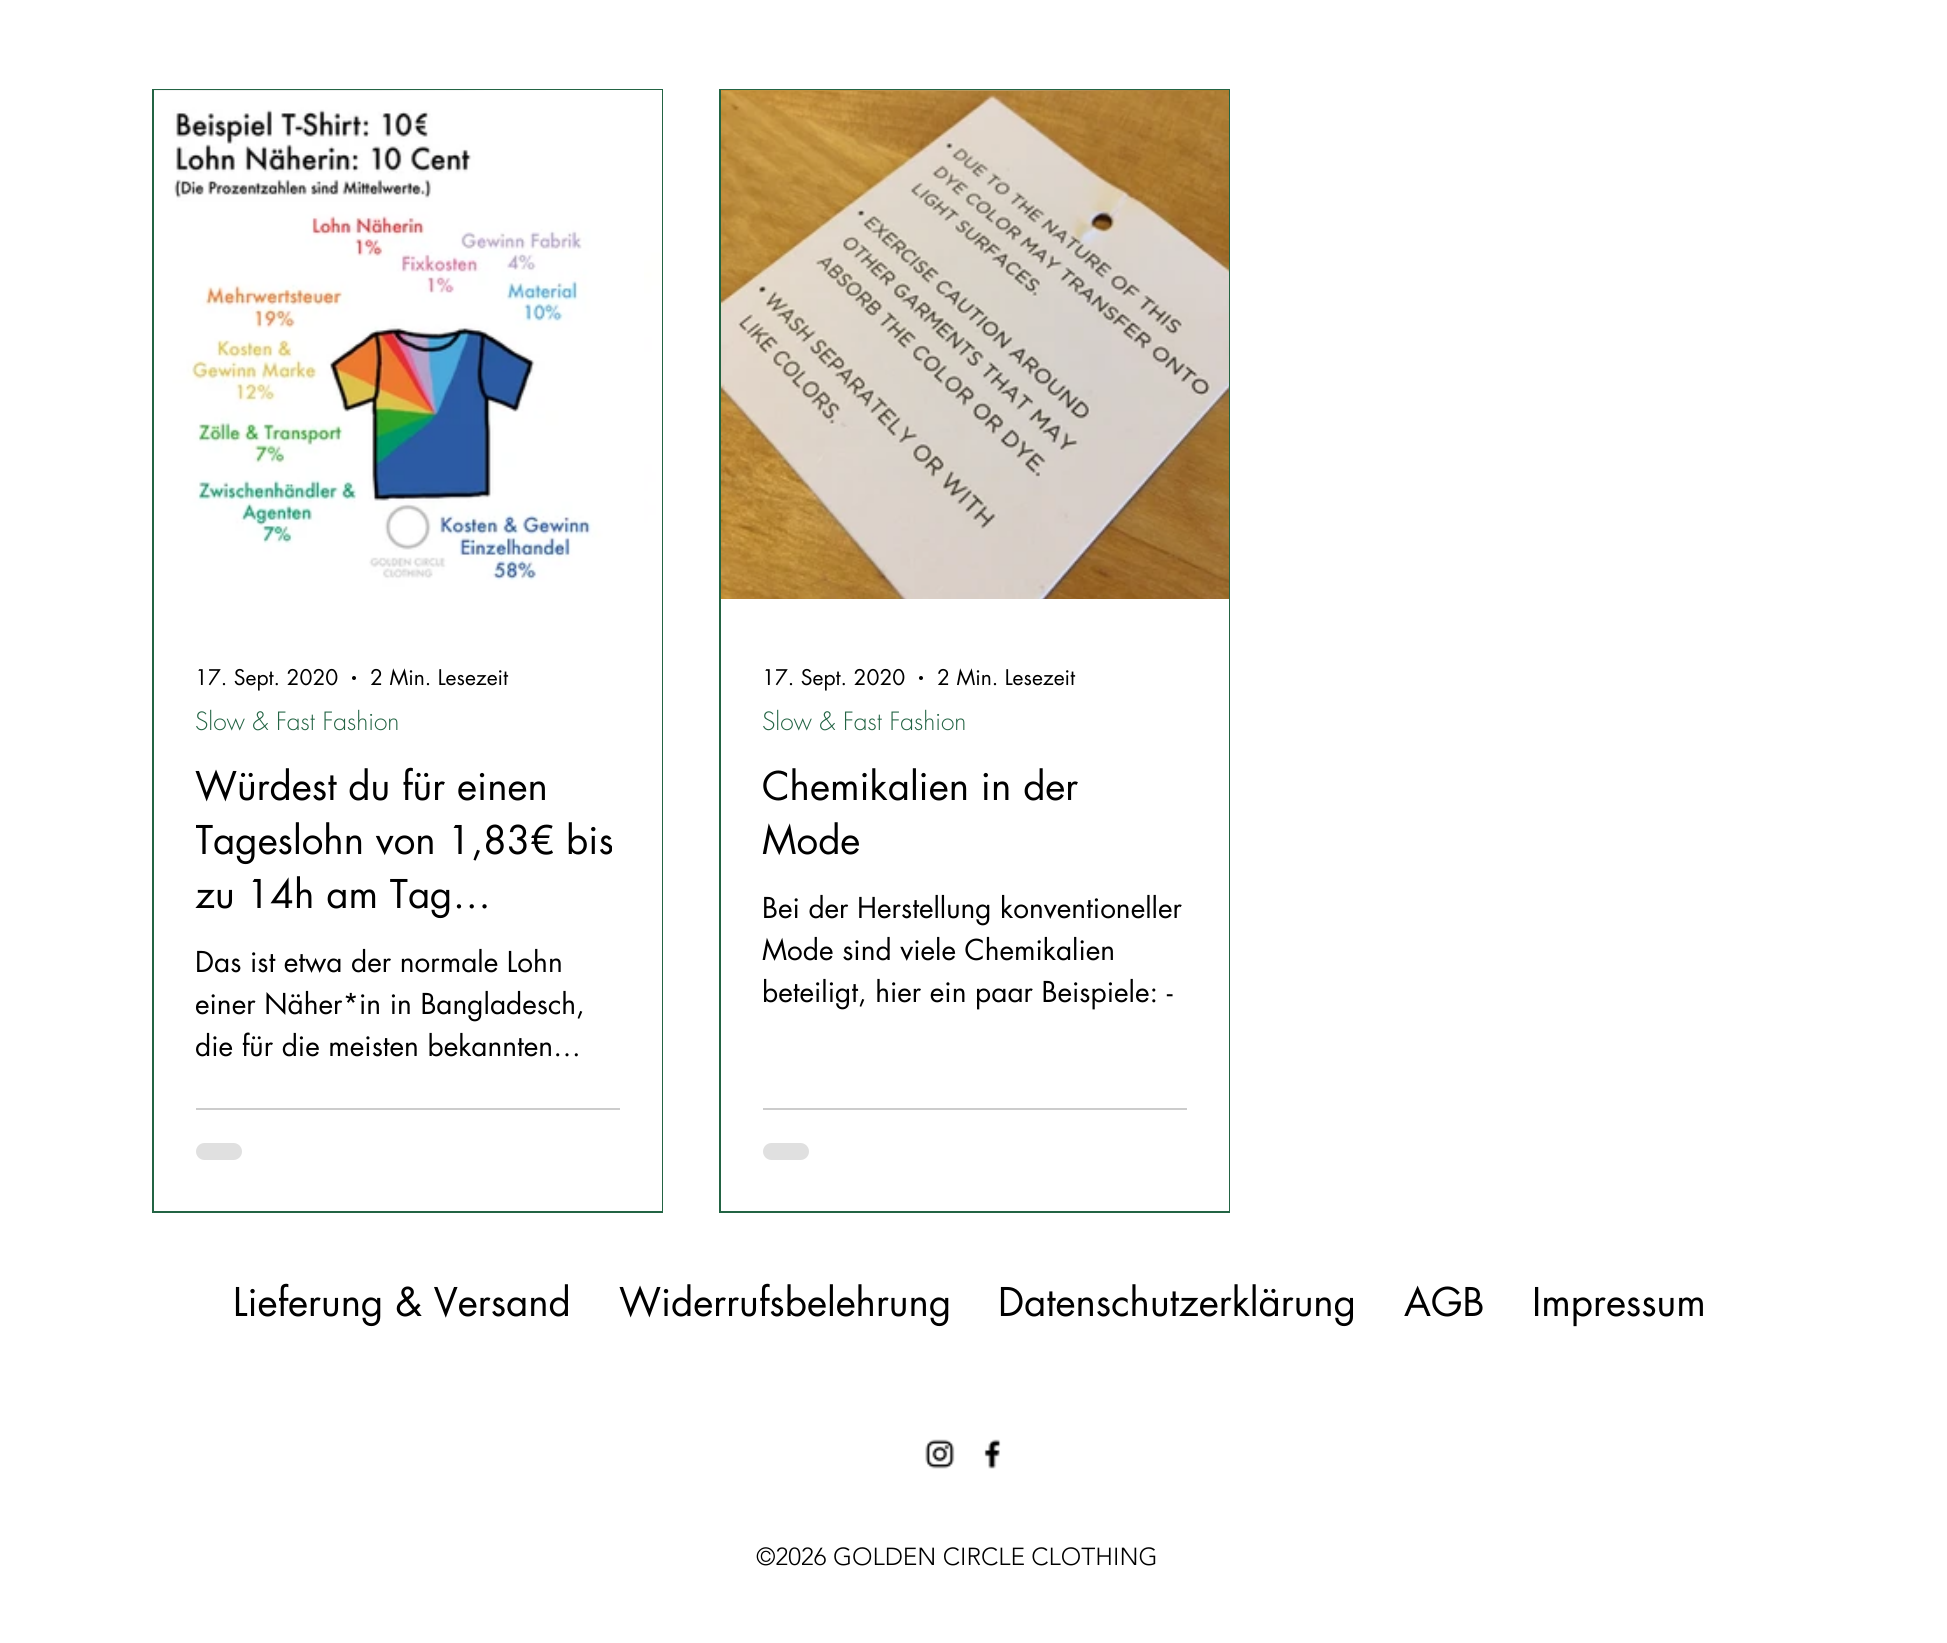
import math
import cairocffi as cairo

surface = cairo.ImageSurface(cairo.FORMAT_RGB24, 1947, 1643)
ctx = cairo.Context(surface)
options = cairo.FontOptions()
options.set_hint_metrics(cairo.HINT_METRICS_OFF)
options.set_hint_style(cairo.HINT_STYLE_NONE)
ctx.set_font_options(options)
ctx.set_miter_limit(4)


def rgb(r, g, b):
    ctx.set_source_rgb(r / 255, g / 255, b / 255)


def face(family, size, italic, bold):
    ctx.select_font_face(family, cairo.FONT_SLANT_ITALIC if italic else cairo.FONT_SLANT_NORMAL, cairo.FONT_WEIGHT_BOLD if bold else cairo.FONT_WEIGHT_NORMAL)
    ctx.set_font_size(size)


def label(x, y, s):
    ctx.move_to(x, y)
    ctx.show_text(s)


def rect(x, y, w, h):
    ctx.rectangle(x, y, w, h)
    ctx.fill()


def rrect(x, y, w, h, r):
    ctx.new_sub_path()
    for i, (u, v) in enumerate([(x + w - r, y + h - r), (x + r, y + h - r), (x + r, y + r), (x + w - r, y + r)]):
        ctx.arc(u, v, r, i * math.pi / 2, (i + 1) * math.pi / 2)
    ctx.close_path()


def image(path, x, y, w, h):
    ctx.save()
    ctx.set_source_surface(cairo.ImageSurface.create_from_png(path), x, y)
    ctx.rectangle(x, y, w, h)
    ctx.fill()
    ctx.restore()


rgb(255, 255, 255)
ctx.paint()
ctx.rectangle(153, 90, 509, 1122)
rgb(35, 100, 68)
ctx.stroke()
image('image0.png', 154, 90, 508, 509)
image('image1.png', 154, 91, 490, 508)
rgb(255, 255, 255)
rect(661, 599, 1, 612)
face('futura', 21, 0, 0)
rgb(0, 0, 0)
label(195, 685, '17. Sept. 2020')
ctx.new_path()
ctx.arc(354, 678, 2, 0, 2 * math.pi)
ctx.fill()
label(370, 685, '2 Min. Lesezeit')
face('futura Light', 24.5, 0, 0)
rgb(35, 100, 68)
label(195, 730, 'Slow & Fast Fashion')
face('futura', 38.5, 0, 0)
rgb(0, 0, 0)
label(195, 800, 'Würdest du für einen')
ctx.save()
ctx.rectangle(196, 760, 424, 161)
ctx.clip()
label(195, 854, 'Tageslohn von 1,83€ bis')
ctx.restore()
label(195, 908, 'zu 14h am Tag…')
face('futura', 28, 0, 0)
label(195, 972, 'Das ist etwa der normale Lohn')
label(195, 1014, 'einer Näher*in in Bangladesch,')
label(195, 1056, 'die für die meisten bekannten…')
rgb(204, 204, 204)
rect(196, 1108, 424, 2)
rgb(224, 224, 224)
rrect(196, 1143, 46, 17, 8.5)
ctx.fill()
ctx.rectangle(720, 90, 509, 1122)
rgb(35, 100, 68)
ctx.stroke()
image('image2.png', 721, 90, 508, 1)
image('image3.png', 721, 91, 508, 508)
rgb(255, 255, 255)
rect(1228, 599, 1, 612)
face('futura', 21, 0, 0)
rgb(0, 0, 0)
label(762, 685, '17. Sept. 2020')
ctx.new_path()
ctx.arc(921, 678, 2, 0, 2 * math.pi)
ctx.fill()
label(937, 685, '2 Min. Lesezeit')
face('futura Light', 24.5, 0, 0)
rgb(35, 100, 68)
label(762, 730, 'Slow & Fast Fashion')
face('futura', 38.5, 0, 0)
rgb(0, 0, 0)
label(762, 800, 'Chemikalien in der')
label(762, 854, 'Mode')
face('futura', 28, 0, 0)
label(762, 918, 'Bei der Herstellung konventioneller')
label(762, 960, 'Mode sind viele Chemikalien')
label(762, 1002, 'beteiligt, hier ein paar Beispiele: -')
rgb(204, 204, 204)
rect(763, 1108, 424, 2)
rgb(224, 224, 224)
rrect(763, 1143, 46, 17, 8.5)
ctx.fill()
face('futura', 38.5, 0, 0)
rgb(0, 0, 0)
label(233, 1316, 'Lieferung & Versand')
label(619, 1316, 'Widerrufsbelehrung')
label(998, 1316, 'Datenschutzerklärung')
label(1404, 1316, 'AGB')
label(1532, 1316, 'Impressum')
image('image4.png', 925, 1439, 30, 30)
image('image5.png', 984, 1439, 17, 30)
face('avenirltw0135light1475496 Light', 24.5, 0, 0)
label(756, 1565, '©2026 GOLDEN CIRCLE CLOTHING')
surface.write_to_png('render.png')
